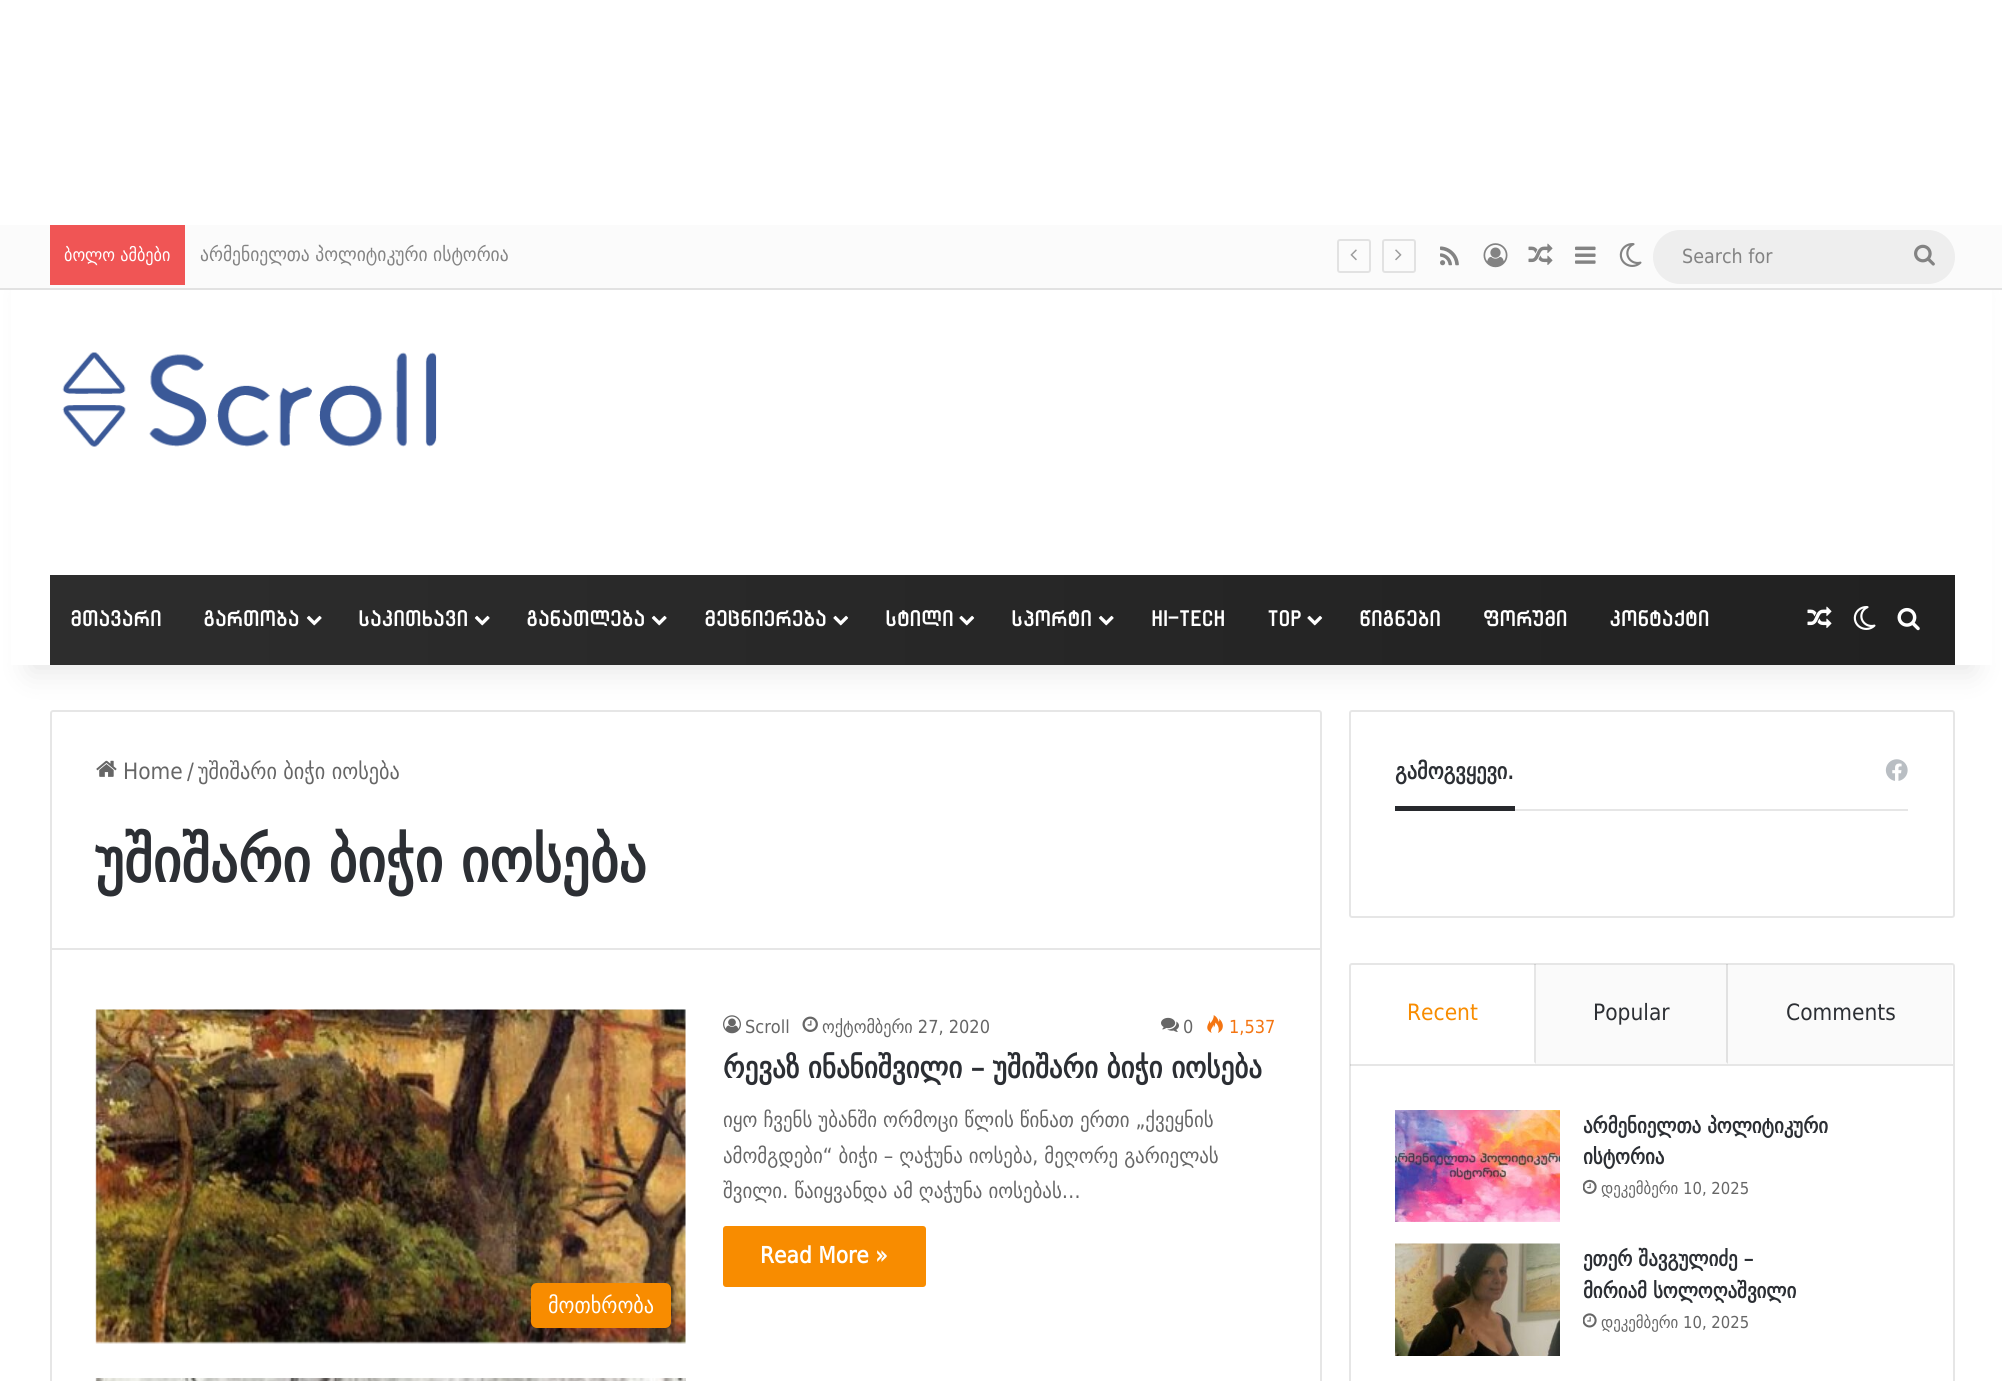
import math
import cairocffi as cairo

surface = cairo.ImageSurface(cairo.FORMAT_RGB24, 2002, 1381)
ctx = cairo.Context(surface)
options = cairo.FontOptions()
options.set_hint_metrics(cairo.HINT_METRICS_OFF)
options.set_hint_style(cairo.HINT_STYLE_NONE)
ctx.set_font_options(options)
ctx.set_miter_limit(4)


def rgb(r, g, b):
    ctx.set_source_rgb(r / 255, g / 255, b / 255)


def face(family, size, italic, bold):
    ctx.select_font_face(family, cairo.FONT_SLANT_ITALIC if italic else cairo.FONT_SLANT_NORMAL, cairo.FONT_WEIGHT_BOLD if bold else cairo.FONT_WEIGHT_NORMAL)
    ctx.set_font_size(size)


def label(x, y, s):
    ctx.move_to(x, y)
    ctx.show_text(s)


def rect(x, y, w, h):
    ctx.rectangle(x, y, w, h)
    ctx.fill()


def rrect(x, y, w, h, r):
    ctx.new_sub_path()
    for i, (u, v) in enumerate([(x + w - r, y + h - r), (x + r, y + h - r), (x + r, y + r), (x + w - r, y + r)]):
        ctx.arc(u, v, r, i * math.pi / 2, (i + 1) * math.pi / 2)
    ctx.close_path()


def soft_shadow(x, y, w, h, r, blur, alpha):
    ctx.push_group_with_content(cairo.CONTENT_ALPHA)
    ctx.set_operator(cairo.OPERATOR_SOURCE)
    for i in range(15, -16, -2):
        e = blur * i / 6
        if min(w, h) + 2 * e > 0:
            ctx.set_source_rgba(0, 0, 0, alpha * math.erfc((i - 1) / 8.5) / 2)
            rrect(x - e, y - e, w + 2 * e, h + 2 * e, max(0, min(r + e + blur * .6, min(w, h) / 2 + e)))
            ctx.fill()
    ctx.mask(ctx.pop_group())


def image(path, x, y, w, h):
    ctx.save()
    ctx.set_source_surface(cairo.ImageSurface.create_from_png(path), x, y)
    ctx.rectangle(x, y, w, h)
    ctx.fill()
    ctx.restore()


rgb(255, 255, 255)
ctx.paint()
ctx.new_path()
ctx.move_to(53, 711)
ctx.line_to(1319, 711)
ctx.curve_to(1320, 711, 1321, 712, 1321, 713)
ctx.line_to(1321, 949)
ctx.line_to(51, 949)
ctx.line_to(51, 713)
ctx.curve_to(51, 712, 52, 711, 53, 711)
ctx.close_path()
rgb(230, 230, 230)
ctx.stroke()
rrect(1350, 711, 604, 206, 2)
ctx.stroke()
rgb(0, 0, 0)
soft_shadow(30, 293, 1943, 379, 0, 15, 0.1)
rgb(255, 255, 255)
rect(11, 290, 1981, 375)
rgb(251, 251, 251)
rect(0, 225, 2002, 63)
rgb(226, 226, 226)
rect(0, 288, 2002, 2)
rgb(240, 85, 85)
rect(50, 225, 135, 60)
face('DejaVu Sans', 18, 0, 0)
rgb(255, 255, 255)
label(64, 261, 'ბოლო ამბები')
face('DejaVu Sans', 19.5, 0, 0)
rgb(131, 131, 131)
label(200, 261, 'არმენიელთა პოლიტიკური ისტორია')
rrect(1338, 240, 32, 32, 2)
rgb(226, 226, 226)
ctx.stroke()
image('image0.png', 1350, 249, 7, 12)
rrect(1383, 240, 32, 32, 2)
ctx.stroke()
image('image1.png', 1395, 249, 7, 12)
image('image2.png', 1440, 246, 19, 20)
image('image3.png', 1483, 243, 25, 25)
image('image4.png', 1528, 243, 25, 22)
image('image5.png', 1575, 246, 21, 18)
image('image6.png', 1619, 243, 23, 24)
rgb(238, 238, 238)
rrect(1653, 230, 302, 54, 27)
ctx.fill()
rgb(131, 131, 131)
label(1682, 263, 'Search for')
image('image7.png', 1914, 244, 21, 22)
image('image8.png', 62, 352, 375, 95)
gradient = cairo.LinearGradient(50, 620, 1955, 619)
gradient.add_color_stop_rgba(0, 0.176, 0.176, 0.176, 1)
gradient.add_color_stop_rgba(1, 0.129, 0.129, 0.129, 1)
ctx.set_source(gradient)
rect(50, 575, 1905, 90)
face('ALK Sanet', 21, 0, 1)
rgb(255, 255, 255)
label(70, 626, 'მთავარი')
label(203, 626, 'გართობა')
image('image9.png', 306, 615, 16, 11)
label(358, 626, 'საკითხავი')
image('image10.png', 474, 615, 16, 11)
label(526, 626, 'განათლება')
image('image11.png', 651, 615, 16, 11)
label(704, 626, 'მეცნიერება')
image('image12.png', 833, 615, 16, 11)
label(885, 626, 'სტილი')
image('image13.png', 959, 615, 16, 11)
label(1011, 626, 'სპორტი')
image('image14.png', 1098, 615, 16, 11)
label(1151, 626, 'Hi-Tech')
label(1267, 626, 'Top')
image('image15.png', 1307, 615, 16, 11)
label(1359, 626, 'წიგნები')
label(1483, 626, 'ფორუმი')
label(1609, 626, 'კონტაქტი')
image('image16.png', 1807, 606, 25, 22)
image('image17.png', 1853, 606, 23, 24)
image('image18.png', 1897, 607, 23, 24)
image('image19.png', 96, 760, 21, 17)
face('DejaVu Sans', 22.5, 0, 0)
rgb(102, 102, 102)
label(123, 779, 'Home')
label(187, 779, '/')
label(198, 779, 'უშიშარი ბიჭი იოსება')
face('DejaVu Sans', 61.5, 0, 1)
rgb(44, 47, 52)
label(95, 882, 'უშიშარი ბიჭი იოსება')
rgb(230, 230, 230)
rect(1320, 950, 2, 431)
rect(50, 950, 2, 431)
image('image20.png', 723, 1015, 18, 19)
face('DejaVu Sans', 18, 0, 0)
rgb(102, 102, 102)
label(745, 1033, 'Scroll')
image('image21.png', 802, 1016, 16, 16)
label(822, 1033, 'ოქტომბერი 27, 2020')
image('image22.png', 1161, 1017, 18, 15)
label(1183, 1033, '0')
image('image23.png', 1207, 1015, 16, 18)
rgb(244, 117, 18)
label(1229, 1033, '1,537')
face('DejaVu Sans', 30, 0, 1)
rgb(44, 47, 52)
label(723, 1078, 'რევაზ ინანიშვილი – უშიშარი ბიჭი იოსება')
face('DejaVu Sans', 21, 0, 0)
rgb(102, 102, 102)
label(723, 1127, 'იყო ჩვენს უბანში ორმოცი წლის წინათ ერთი „ქვეყნის')
label(723, 1163, 'ამომგდები“ ბიჭი – ღაჭუნა იოსება, მეღორე გარიელას')
label(723, 1198, 'შვილი. წაიყვანდა ამ ღაჭუნა იოსებას…')
rgb(248, 140, 0)
rrect(723, 1226, 203, 61, 3)
ctx.fill()
face('DejaVu Sans', 22.5, 0, 1)
rgb(255, 255, 255)
label(760, 1263, 'Read More »')
image('image24.png', 95, 1009, 591, 335)
rgb(248, 140, 0)
rrect(531, 1283, 140, 45, 6)
ctx.fill()
face('DejaVu Sans', 22.5, 0, 0)
rgb(255, 255, 255)
label(548, 1313, 'მოთხრობა')
image('image25.png', 95, 1378, 591, 3)
rgb(230, 230, 230)
rect(1515, 809, 393, 2)
face('DejaVu Sans', 22.5, 0, 1)
rgb(44, 47, 52)
label(1395, 779, 'გამოგვყევი.')
image('image26.png', 1885, 759, 23, 22)
rgb(39, 41, 45)
rect(1395, 806, 120, 5)
rrect(1350, 964, 604, 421, 2)
rgb(230, 230, 230)
ctx.stroke()
ctx.set_source_rgba(0, 0, 0, 0.1)
rect(1350, 1064, 603, 2)
ctx.new_path()
ctx.move_to(1536, 964)
ctx.line_to(1536, 1064)
ctx.line_to(1534, 1062)
ctx.line_to(1534, 964)
ctx.close_path()
ctx.fill()
face('DejaVu Sans', 22.5, 0, 0)
rgb(248, 140, 0)
label(1407, 1020, 'Recent')
rgb(250, 250, 250)
rect(1536, 965, 416, 99)
ctx.set_source_rgba(0, 0, 0, 0.1)
ctx.new_path()
ctx.move_to(1728, 964)
ctx.line_to(1728, 1064)
ctx.line_to(1726, 1062)
ctx.line_to(1726, 964)
ctx.close_path()
ctx.fill()
rgb(44, 47, 52)
label(1593, 1020, 'Popular')
label(1786, 1020, 'Comments')
image('image27.png', 1395, 1110, 165, 112)
face('DejaVu Sans', 21, 0, 1)
label(1583, 1133, 'არმენიელთა პოლიტიკური')
label(1583, 1164, 'ისტორია')
image('image28.png', 1583, 1179, 14, 15)
face('DejaVu Sans', 16.5, 0, 0)
rgb(102, 102, 102)
label(1601, 1194, 'დეკემბერი 10, 2025')
image('image29.png', 1395, 1243, 165, 113)
face('DejaVu Sans', 21, 0, 1)
rgb(44, 47, 52)
label(1583, 1266, 'ეთერ შავგულიძე –')
label(1583, 1298, 'მირიამ სოლოღაშვილი')
image('image30.png', 1583, 1313, 14, 15)
face('DejaVu Sans', 16.5, 0, 0)
rgb(102, 102, 102)
label(1601, 1328, 'დეკემბერი 10, 2025')
surface.write_to_png('render.png')
